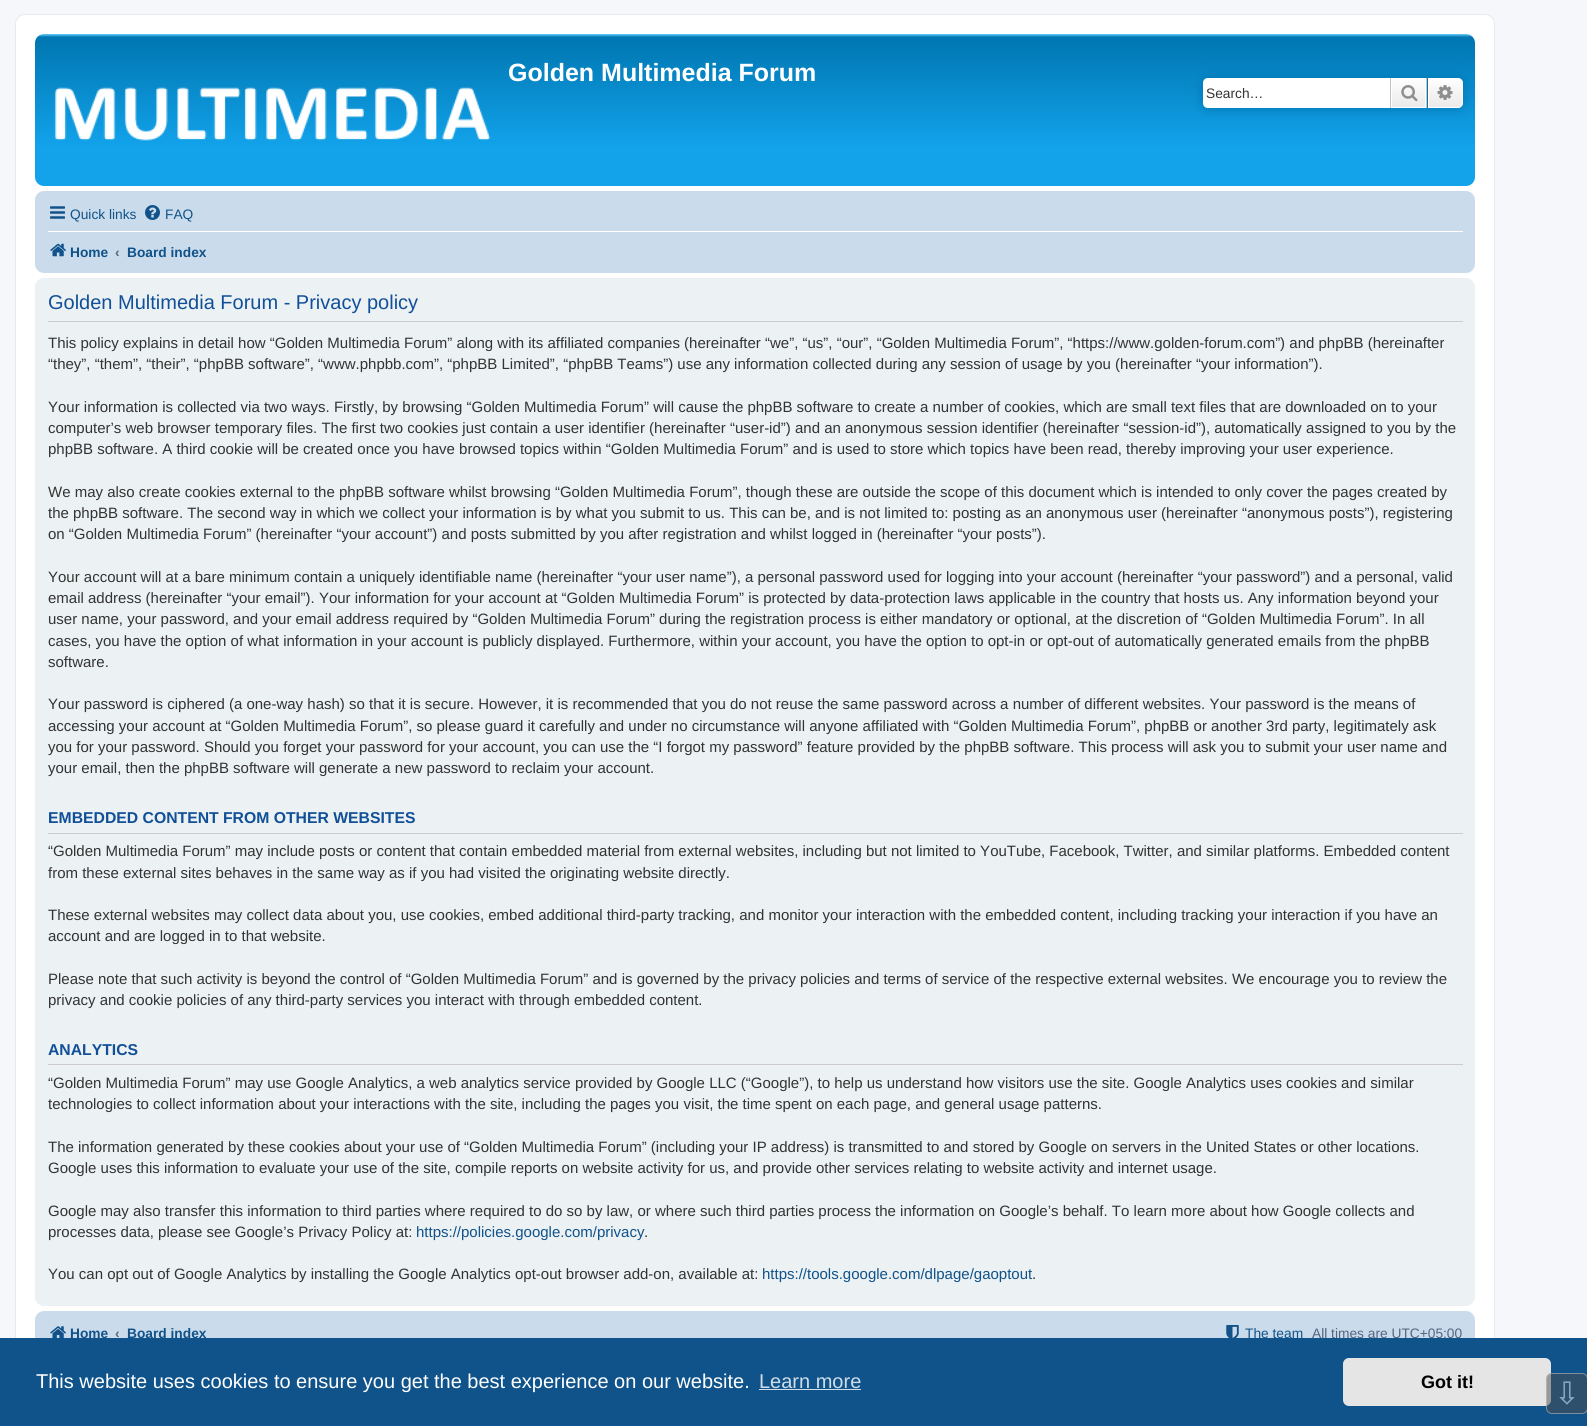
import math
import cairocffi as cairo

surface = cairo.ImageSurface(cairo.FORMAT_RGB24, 1587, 1426)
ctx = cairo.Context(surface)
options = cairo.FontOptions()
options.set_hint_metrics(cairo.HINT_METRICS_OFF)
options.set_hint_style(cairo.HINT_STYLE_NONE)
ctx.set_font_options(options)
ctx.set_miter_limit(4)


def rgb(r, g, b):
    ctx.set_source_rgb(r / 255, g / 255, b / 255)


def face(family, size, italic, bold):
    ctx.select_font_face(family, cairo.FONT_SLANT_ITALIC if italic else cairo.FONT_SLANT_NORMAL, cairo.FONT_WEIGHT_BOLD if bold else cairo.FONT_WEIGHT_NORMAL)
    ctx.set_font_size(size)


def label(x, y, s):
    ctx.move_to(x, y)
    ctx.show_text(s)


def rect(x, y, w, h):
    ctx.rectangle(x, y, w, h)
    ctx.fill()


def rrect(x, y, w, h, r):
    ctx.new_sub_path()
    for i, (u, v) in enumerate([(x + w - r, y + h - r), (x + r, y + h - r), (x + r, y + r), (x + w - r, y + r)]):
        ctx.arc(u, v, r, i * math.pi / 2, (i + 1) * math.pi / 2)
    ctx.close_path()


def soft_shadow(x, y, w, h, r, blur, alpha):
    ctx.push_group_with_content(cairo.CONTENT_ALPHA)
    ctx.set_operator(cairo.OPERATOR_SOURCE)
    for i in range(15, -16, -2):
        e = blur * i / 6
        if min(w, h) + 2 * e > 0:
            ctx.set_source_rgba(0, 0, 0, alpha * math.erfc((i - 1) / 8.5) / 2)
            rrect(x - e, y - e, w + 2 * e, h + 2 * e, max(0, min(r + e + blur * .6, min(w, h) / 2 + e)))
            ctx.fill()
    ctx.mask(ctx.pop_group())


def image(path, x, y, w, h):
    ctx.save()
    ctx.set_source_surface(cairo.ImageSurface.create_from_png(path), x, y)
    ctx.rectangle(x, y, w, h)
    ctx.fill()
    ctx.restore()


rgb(245, 247, 250)
ctx.paint()
rgb(255, 255, 255)
rrect(15.5, 14.5, 1479, 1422, 9.5)
ctx.fill_preserve()
rgb(230, 233, 237)
ctx.set_line_width(1)
ctx.stroke()
gradient = cairo.LinearGradient(755, 34, 755, 186)
gradient.add_color_stop_rgba(0, 0.416, 0.808, 1, 1)
gradient.add_color_stop_rgba(0.02, 0, 0.463, 0.694, 1)
gradient.add_color_stop_rgba(0.75, 0.071, 0.639, 0.922, 1)
gradient.add_color_stop_rgba(1, 0.071, 0.639, 0.922, 1)
ctx.set_source(gradient)
rrect(35, 34, 1440, 152, 9)
ctx.fill()
face('Liberation Sans', 25, 0, 1)
rgb(255, 255, 255)
label(508, 81, 'Golden Multimedia Forum')
image('image0.png', 54, 87, 437, 54)
rgb(0, 117, 176)
soft_shadow(1203, 78, 260, 30, 5, 6, 1)
rgb(255, 255, 255)
ctx.new_path()
ctx.move_to(1208, 78)
ctx.line_to(1390, 78)
ctx.line_to(1390, 108)
ctx.line_to(1208, 108)
ctx.curve_to(1205, 108, 1203, 106, 1203, 103)
ctx.line_to(1203, 83)
ctx.curve_to(1203, 80, 1205, 78, 1208, 78)
ctx.close_path()
ctx.fill()
face('Liberation Sans', 13.75, 0, 0)
rgb(51, 51, 51)
label(1206, 98, 'Search…')
gradient = cairo.LinearGradient(1409, 78, 1409, 108)
gradient.add_color_stop_rgba(0, 1, 1, 1, 1)
gradient.add_color_stop_rgba(1, 0.914, 0.914, 0.914, 1)
ctx.set_source(gradient)
rect(1392, 79, 33, 28)
ctx.rectangle(1391.5, 78.5, 34, 29)
rgb(255, 255, 255)
ctx.stroke()
rgb(199, 195, 191)
rect(1426, 78, 1, 30)
rect(1390, 78, 1, 30)
image('image1.png', 1401, 85, 17, 17)
gradient = cairo.LinearGradient(1445, 78, 1445, 108)
gradient.add_color_stop_rgba(0, 1, 1, 1, 1)
gradient.add_color_stop_rgba(1, 0.914, 0.914, 0.914, 1)
ctx.set_source(gradient)
ctx.new_path()
ctx.move_to(1428.5, 78.5)
ctx.line_to(1458, 78.5)
ctx.curve_to(1460.5, 78.5, 1462.5, 80.5, 1462.5, 83)
ctx.line_to(1462.5, 103)
ctx.curve_to(1462.5, 105.5, 1460.5, 107.5, 1458, 107.5)
ctx.line_to(1428.5, 107.5)
ctx.close_path()
ctx.fill_preserve()
rgb(255, 255, 255)
ctx.stroke()
image('image2.png', 1437, 85, 16, 15)
rgb(202, 220, 235)
rrect(35, 191, 1440, 82, 9)
ctx.fill()
image('image3.png', 50, 206, 15, 13)
rgb(16, 82, 137)
label(70, 219, 'Quick links')
image('image4.png', 145, 205, 15, 15)
label(165, 219, 'FAQ')
rgb(255, 255, 255)
rect(48, 231, 1415, 1)
image('image5.png', 50, 243, 16, 14)
face('Liberation Sans', 13.75, 0, 1)
rgb(16, 82, 137)
label(70, 257, 'Home')
rgb(83, 100, 130)
label(115, 257, '‹')
rgb(16, 82, 137)
label(127, 257, 'Board index')
rgb(236, 241, 243)
rrect(35, 278, 1440, 1028, 9)
ctx.fill()
rgb(204, 204, 204)
rect(48, 321, 1415, 1)
face('Liberation Sans', 20, 0, 0)
rgb(17, 80, 152)
label(48, 309, 'Golden Multimedia Forum - Privacy policy')
face('Liberation Sans', 15, 0, 0)
rgb(51, 51, 51)
label(48, 348, 'This policy explains in detail how “Golden Multimedia Forum” along with its affiliated companies (hereinafter “we”, “us”, “our”, “Golden Multimedia Forum”, “https://www.golden-forum.com”) and phpBB (hereinafter')
label(48, 369, '“they”, “them”, “their”, “phpBB software”, “www.phpbb.com”, “phpBB Limited”, “phpBB Teams”) use any information collected during any session of usage by you (hereinafter “your information”).')
label(48, 412, 'Your information is collected via two ways. Firstly, by browsing “Golden Multimedia Forum” will cause the phpBB software to create a number of cookies, which are small text files that are downloaded on to your')
label(48, 433, 'computer’s web browser temporary files. The first two cookies just contain a user identifier (hereinafter “user-id”) and an anonymous session identifier (hereinafter “session-id”), automatically assigned to you by the')
label(48, 454, 'phpBB software. A third cookie will be created once you have browsed topics within “Golden Multimedia Forum” and is used to store which topics have been read, thereby improving your user experience.')
label(48, 497, 'We may also create cookies external to the phpBB software whilst browsing “Golden Multimedia Forum”, though these are outside the scope of this document which is intended to only cover the pages created by')
label(48, 518, 'the phpBB software. The second way in which we collect your information is by what you submit to us. This can be, and is not limited to: posting as an anonymous user (hereinafter “anonymous posts”), registering')
label(48, 539, 'on “Golden Multimedia Forum” (hereinafter “your account”) and posts submitted by you after registration and whilst logged in (hereinafter “your posts”).')
label(48, 582, 'Your account will at a bare minimum contain a uniquely identifiable name (hereinafter “your user name”), a personal password used for logging into your account (hereinafter “your password”) and a personal, valid')
label(48, 603, 'email address (hereinafter “your email”). Your information for your account at “Golden Multimedia Forum” is protected by data-protection laws applicable in the country that hosts us. Any information beyond your')
label(48, 624, 'user name, your password, and your email address required by “Golden Multimedia Forum” during the registration process is either mandatory or optional, at the discretion of “Golden Multimedia Forum”. In all')
label(48, 646, 'cases, you have the option of what information in your account is publicly displayed. Furthermore, within your account, you have the option to opt-in or opt-out of automatically generated emails from the phpBB')
label(48, 667, 'software.')
label(48, 709, 'Your password is ciphered (a one-way hash) so that it is secure. However, it is recommended that you do not reuse the same password across a number of different websites. Your password is the means of')
label(48, 731, 'accessing your account at “Golden Multimedia Forum”, so please guard it carefully and under no circumstance will anyone affiliated with “Golden Multimedia Forum”, phpBB or another 3rd party, legitimately ask')
label(48, 752, 'you for your password. Should you forget your password for your account, you can use the “I forgot my password” feature provided by the phpBB software. This process will ask you to submit your user name and')
label(48, 773, 'your email, then the phpBB software will generate a new password to reclaim your account.')
rgb(204, 204, 204)
rect(48, 833, 1415, 1)
face('Liberation Sans', 15.75, 0, 1)
rgb(17, 80, 152)
label(48, 823, 'EMBEDDED CONTENT FROM OTHER WEBSITES')
face('Liberation Sans', 15, 0, 0)
rgb(51, 51, 51)
label(48, 856, '“Golden Multimedia Forum” may include posts or content that contain embedded material from external websites, including but not limited to YouTube, Facebook, Twitter, and similar platforms. Embedded content')
label(48, 878, 'from these external sites behaves in the same way as if you had visited the originating website directly.')
label(48, 920, 'These external websites may collect data about you, use cookies, embed additional third-party tracking, and monitor your interaction with the embedded content, including tracking your interaction if you have an')
label(48, 941, 'account and are logged in to that website.')
label(48, 984, 'Please note that such activity is beyond the control of “Golden Multimedia Forum” and is governed by the privacy policies and terms of service of the respective external websites. We encourage you to review the')
label(48, 1005, 'privacy and cookie policies of any third-party services you interact with through embedded content.')
rgb(204, 204, 204)
rect(48, 1064, 1415, 1)
face('Liberation Sans', 15.75, 0, 1)
rgb(17, 80, 152)
label(48, 1055, 'ANALYTICS')
face('Liberation Sans', 15, 0, 0)
rgb(51, 51, 51)
label(48, 1088, '“Golden Multimedia Forum” may use Google Analytics, a web analytics service provided by Google LLC (“Google”), to help us understand how visitors use the site. Google Analytics uses cookies and similar')
label(48, 1109, 'technologies to collect information about your interactions with the site, including the pages you visit, the time spent on each page, and general usage patterns.')
label(48, 1152, 'The information generated by these cookies about your use of “Golden Multimedia Forum” (including your IP address) is transmitted to and stored by Google on servers in the United States or other locations.')
label(48, 1173, 'Google uses this information to evaluate your use of the site, compile reports on website activity for us, and provide other services relating to website activity and internet usage.')
label(48, 1216, 'Google may also transfer this information to third parties where required to do so by law, or where such third parties process the information on Google’s behalf. To learn more about how Google collects and')
label(48, 1237, 'processes data, please see Google’s Privacy Policy at:')
rgb(16, 82, 137)
label(416, 1237, 'https://policies.google.com/privacy')
rgb(51, 51, 51)
label(644, 1237, '.')
label(48, 1279, 'You can opt out of Google Analytics by installing the Google Analytics opt-out browser add-on, available at:')
rgb(16, 82, 137)
label(762, 1279, 'https://tools.google.com/dlpage/gaoptout')
rgb(51, 51, 51)
label(1032, 1279, '.')
rgb(202, 220, 235)
rrect(35, 1311, 1440, 44, 9)
ctx.fill()
image('image6.png', 50, 1326, 16, 12)
face('Liberation Sans', 13.75, 0, 1)
rgb(16, 82, 137)
label(70, 1338, 'Home')
rgb(83, 100, 130)
label(115, 1338, '‹')
rgb(16, 82, 137)
label(127, 1338, 'Board index')
image('image7.png', 1226, 1325, 13, 13)
face('Liberation Sans', 13.75, 0, 0)
label(1245, 1338, 'The team')
rgb(83, 100, 130)
label(1312, 1338, 'All times are UTC+05:00')
rgb(15, 83, 138)
rect(0, 1338, 1587, 88)
face('Liberation Sans', 20, 0, 0)
rgb(255, 255, 255)
label(36, 1388, 'This website uses cookies to ensure you get the best experience on our website.')
rgb(207, 221, 232)
label(759, 1388, 'Learn more')
rect(759, 1389, 102, 1)
rgb(229, 229, 229)
rrect(1343, 1358, 208, 48, 6)
ctx.fill()
face('Liberation Sans', 18, 0, 1)
rgb(0, 0, 0)
label(1421, 1388, 'Got it!')
ctx.set_source_rgba(0.31, 0.31, 0.31, 0.5)
rrect(1546, 1373, 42, 41, 6)
ctx.fill()
rrect(1546.5, 1373.5, 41, 40, 5.5)
ctx.set_source_rgba(0.8, 0.8, 0.8, 0.5)
ctx.stroke()
face('DejaVu Sans', 31, 0, 0)
rgb(135, 169, 197)
label(1554, 1404, '⇩')
surface.write_to_png('render.png')
